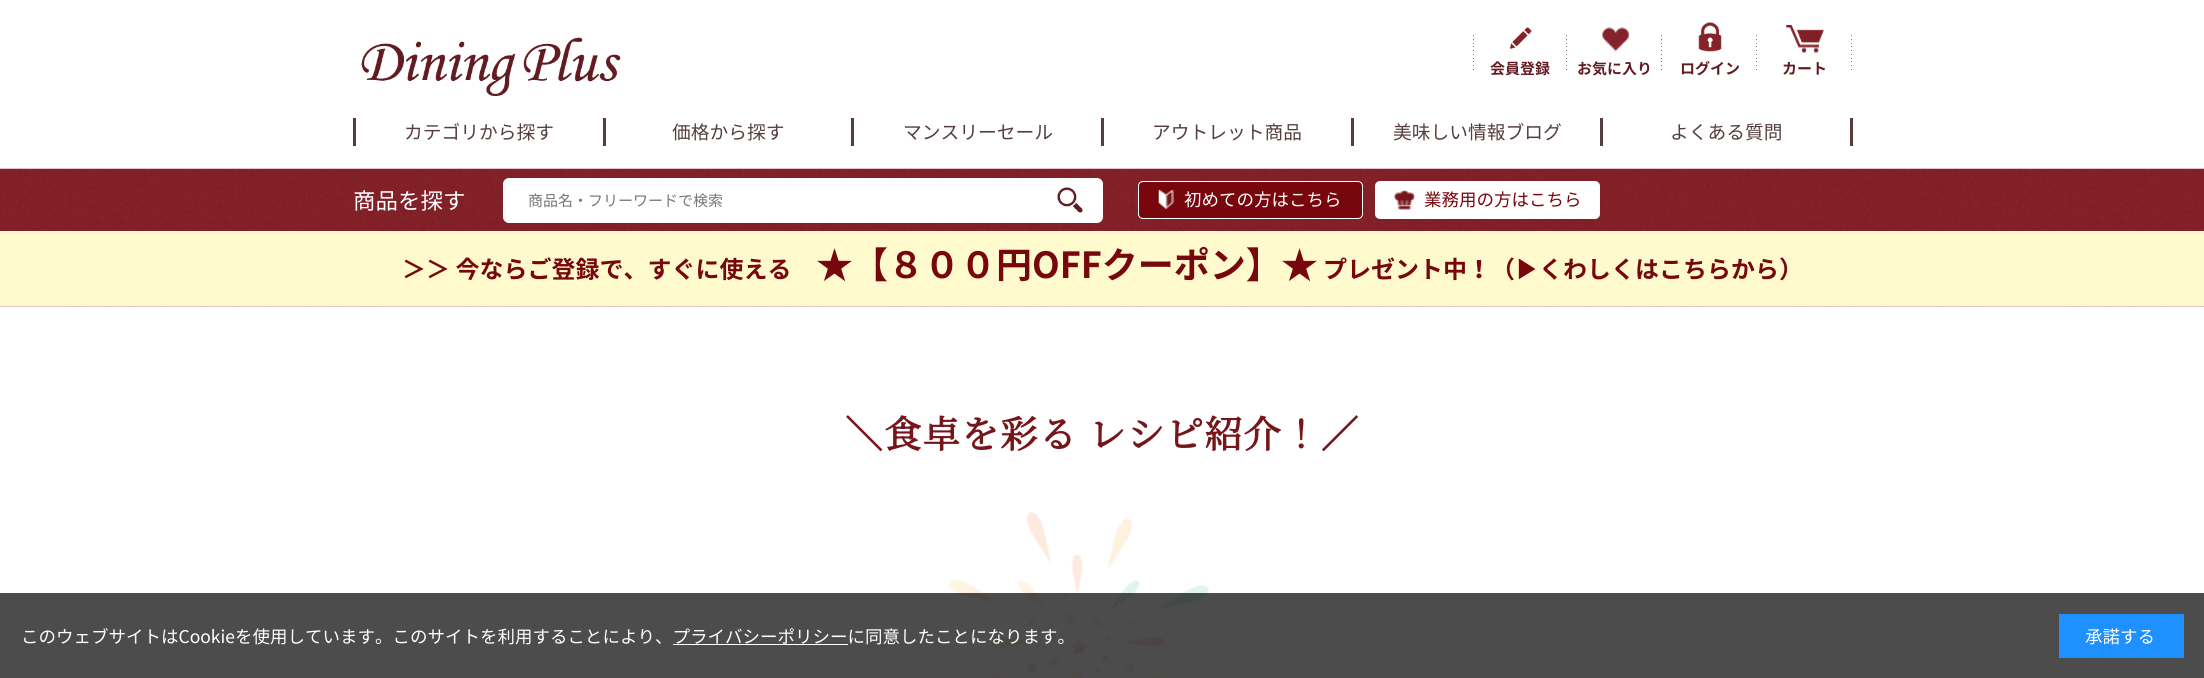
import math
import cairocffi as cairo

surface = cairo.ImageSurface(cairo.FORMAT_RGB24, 2204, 678)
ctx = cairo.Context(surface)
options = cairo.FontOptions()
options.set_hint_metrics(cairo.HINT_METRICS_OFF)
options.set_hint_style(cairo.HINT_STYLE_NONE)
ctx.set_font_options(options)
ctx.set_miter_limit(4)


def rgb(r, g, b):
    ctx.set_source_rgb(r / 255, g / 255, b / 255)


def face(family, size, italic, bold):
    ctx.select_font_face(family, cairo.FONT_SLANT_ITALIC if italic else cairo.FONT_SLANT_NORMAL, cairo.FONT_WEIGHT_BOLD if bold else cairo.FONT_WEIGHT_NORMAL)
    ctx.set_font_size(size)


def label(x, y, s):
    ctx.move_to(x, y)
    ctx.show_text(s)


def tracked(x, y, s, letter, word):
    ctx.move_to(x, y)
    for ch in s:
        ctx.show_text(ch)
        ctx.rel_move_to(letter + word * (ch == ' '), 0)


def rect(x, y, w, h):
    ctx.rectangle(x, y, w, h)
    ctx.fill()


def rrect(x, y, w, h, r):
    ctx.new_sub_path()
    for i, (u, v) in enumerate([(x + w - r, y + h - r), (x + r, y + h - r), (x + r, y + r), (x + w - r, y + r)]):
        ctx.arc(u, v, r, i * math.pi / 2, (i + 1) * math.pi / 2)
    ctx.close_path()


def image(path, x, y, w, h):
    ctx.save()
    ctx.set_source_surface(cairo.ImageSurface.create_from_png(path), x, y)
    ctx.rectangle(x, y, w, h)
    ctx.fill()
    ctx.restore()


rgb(255, 255, 255)
ctx.paint()
image('image0.png', 361, 37, 260, 59)
image('image1.png', 1473, 35, 1, 35)
image('image2.png', 1510, 27, 22, 22)
face('Noto Sans JP', 15, 0, 1)
rgb(99, 27, 34)
label(1490, 74, '会員登録')
image('image1.png', 1566, 35, 1, 35)
image('image3.png', 1602, 27, 27, 25)
label(1577, 74, 'お気に入り')
image('image1.png', 1661, 35, 1, 35)
image('image4.png', 1698, 22, 24, 30)
label(1680, 74, 'ログイン')
image('image1.png', 1756, 35, 1, 35)
image('image5.png', 1786, 25, 38, 28)
label(1782, 74, 'カート')
image('image1.png', 1851, 35, 1, 35)
rgb(86, 62, 62)
rect(353, 118, 3, 28)
rect(603, 118, 3, 28)
face('Noto Sans JP', 18.75, 0, 0)
label(404, 139, 'カテゴリから探す')
rect(851, 118, 3, 28)
label(672, 139, '価格から探す')
rect(1101, 118, 3, 28)
label(903, 139, 'マンスリーセール')
rect(1351, 118, 3, 28)
label(1152, 139, 'アウトレット商品')
rect(1600, 118, 3, 28)
label(1393, 139, '美味しい情報ブログ')
rect(1850, 118, 3, 28)
label(1670, 139, 'よくある質問')
image('image6.png', 0, 168, 2204, 139)
face('Noto Sans JP', 22.5, 0, 0)
rgb(255, 255, 255)
label(353, 209, '商品を探す')
rrect(503, 178, 600, 45, 6)
ctx.fill()
face('Noto Sans JP', 15, 0, 0)
rgb(117, 117, 117)
label(528, 206, '商品名・フリーワードで検索')
image('image7.png', 1057, 187, 26, 26)
rgb(120, 6, 13)
rrect(1138.5, 181.5, 224, 37, 4.5)
ctx.fill_preserve()
rgb(255, 255, 255)
ctx.set_line_width(1)
ctx.stroke()
image('image8.png', 1158, 190, 16, 19)
face('Noto Sans JP', 17.5, 0, 0)
label(1184, 206, '初めての方はこちら')
rrect(1375, 181, 225, 38, 5)
ctx.fill()
image('image9.png', 1393, 190, 22, 20)
rgb(120, 6, 13)
label(1424, 206, '業務用の方はこちら')
rgb(255, 250, 205)
rect(0, 231, 2204, 75)
face('Noto Sans JP', 24, 0, 1)
rgb(120, 6, 13)
label(402, 278, '＞＞ 今ならご登録で、すぐに使える')
face('WenQuanYi Zen Hei', 36, 0, 1)
label(816, 278, '★')
face('Noto Sans JP', 36, 0, 1)
label(852, 278, '【８００円OFFクーポン】')
face('WenQuanYi Zen Hei', 36, 0, 1)
label(1281, 278, '★')
face('Noto Sans JP', 24, 0, 1)
label(1323, 278, 'プレゼント中！（')
face('WenQuanYi Zen Hei', 24, 0, 1)
label(1515, 278, '▶')
face('Noto Sans JP', 24, 0, 1)
label(1539, 278, 'くわしくはこちらから）')
face('Noto Serif JP', 37.5, 0, 1)
rgb(118, 22, 27)
tracked(845, 448, '＼食卓を彩る レシピ紹介！／', 1.25, 0)
image('image10.png', 948, 512, 261, 166)
ctx.set_source_rgba(0, 0, 0, 0.7)
rect(0, 593, 2204, 85)
face('Noto Sans JP', 17.5, 0, 0)
rgb(255, 255, 255)
label(21, 643, 'このウェブサイトはCookieを使用しています。このサイトを利用することにより、プライバシーポリシーに同意したことになります。')
rect(673, 644, 175, 1)
rgb(30, 144, 255)
rect(2059, 614, 125, 44)
rgb(255, 255, 255)
label(2085, 643, '承諾する')
surface.write_to_png('render.png')
